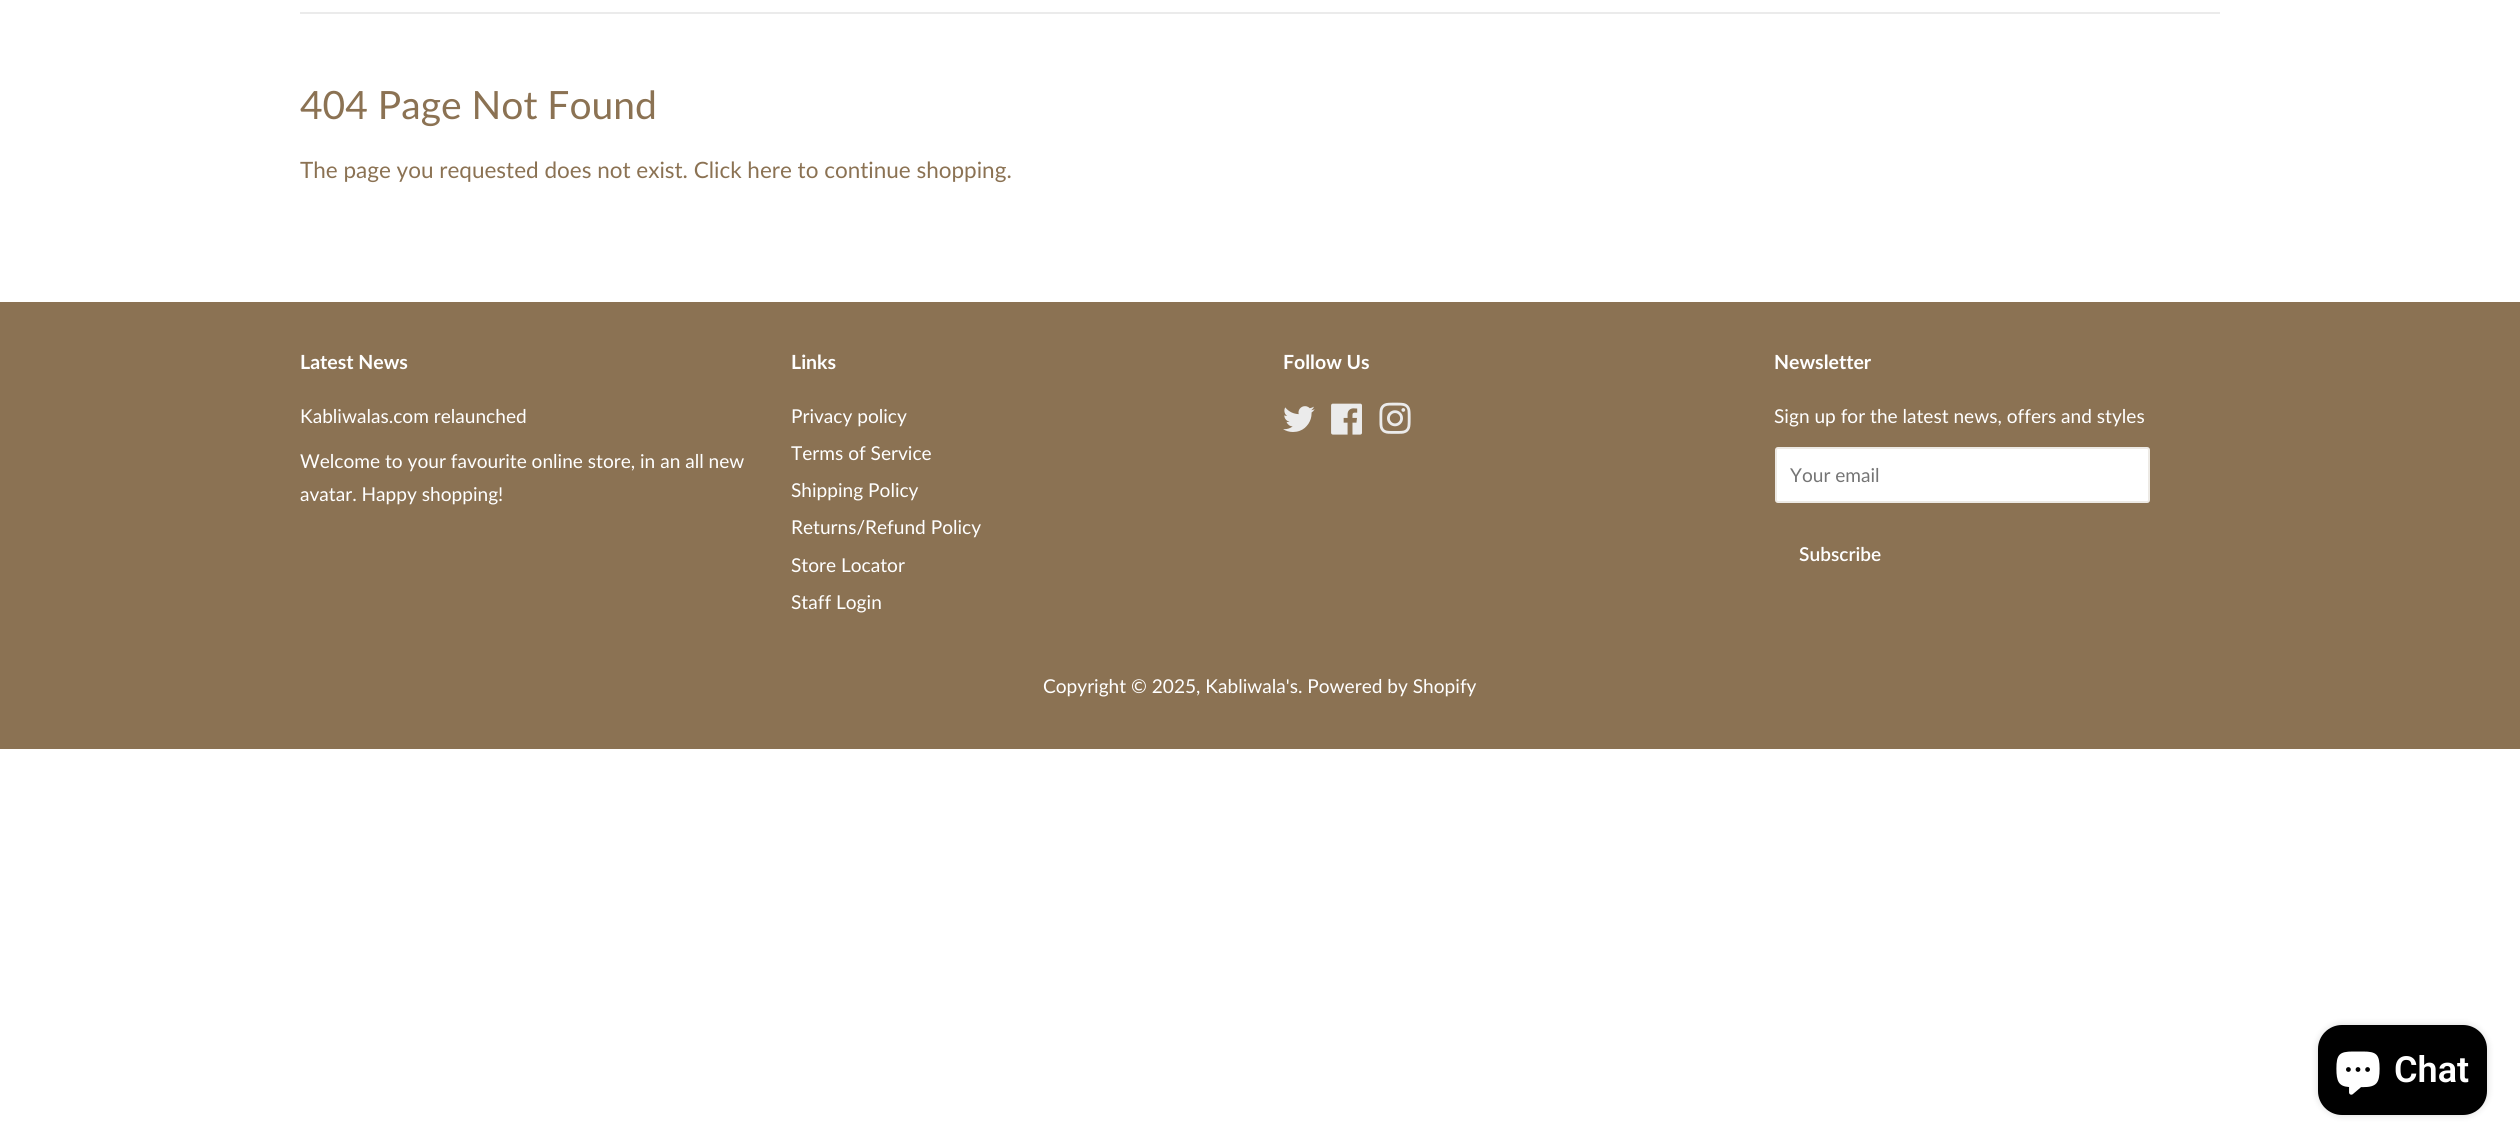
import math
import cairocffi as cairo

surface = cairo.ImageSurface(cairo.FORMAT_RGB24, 2520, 1146)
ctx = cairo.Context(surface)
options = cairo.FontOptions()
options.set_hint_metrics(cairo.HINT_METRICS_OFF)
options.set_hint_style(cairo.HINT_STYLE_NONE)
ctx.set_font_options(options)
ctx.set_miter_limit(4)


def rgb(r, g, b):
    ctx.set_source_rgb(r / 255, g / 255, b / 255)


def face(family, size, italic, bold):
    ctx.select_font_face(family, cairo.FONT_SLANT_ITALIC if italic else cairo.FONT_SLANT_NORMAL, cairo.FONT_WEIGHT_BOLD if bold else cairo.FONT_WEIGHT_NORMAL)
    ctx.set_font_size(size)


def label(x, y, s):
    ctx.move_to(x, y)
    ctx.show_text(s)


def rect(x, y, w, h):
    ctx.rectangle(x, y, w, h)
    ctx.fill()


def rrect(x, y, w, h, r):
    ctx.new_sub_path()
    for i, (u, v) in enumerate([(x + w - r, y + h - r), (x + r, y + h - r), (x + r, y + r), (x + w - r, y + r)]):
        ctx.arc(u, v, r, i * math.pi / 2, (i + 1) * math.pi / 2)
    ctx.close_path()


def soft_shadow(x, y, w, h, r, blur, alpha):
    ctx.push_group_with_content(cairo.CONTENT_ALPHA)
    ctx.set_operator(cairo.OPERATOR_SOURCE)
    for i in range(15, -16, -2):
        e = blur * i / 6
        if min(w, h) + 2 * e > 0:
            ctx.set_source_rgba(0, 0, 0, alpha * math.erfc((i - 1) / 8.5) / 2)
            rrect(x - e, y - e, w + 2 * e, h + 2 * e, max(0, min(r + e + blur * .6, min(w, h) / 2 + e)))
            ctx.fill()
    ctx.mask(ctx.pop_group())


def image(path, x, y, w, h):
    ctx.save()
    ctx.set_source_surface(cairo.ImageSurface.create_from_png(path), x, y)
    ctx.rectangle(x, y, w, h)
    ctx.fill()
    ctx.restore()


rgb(255, 255, 255)
ctx.paint()
rgb(235, 235, 235)
rect(300, 12, 1920, 2)
face('Lato', 39, 0, 0)
rgb(139, 114, 83)
label(300, 119, '404 Page Not Found')
face('Lato', 22.5, 0, 0)
label(300, 178, 'The page you requested does not exist. Click here to continue shopping.')
rect(0, 302, 2520, 447)
face('Lato', 19.5, 0, 1)
rgb(255, 255, 255)
label(300, 369, 'Latest News')
face('Lato', 19.1, 0, 0)
label(300, 423, 'Kabliwalas.com relaunched')
label(300, 468, 'Welcome to your favourite online store, in an all new')
label(300, 501, 'avatar. Happy shopping!')
face('Lato', 19.5, 0, 1)
label(791, 369, 'Links')
face('Lato', 19.1, 0, 0)
label(791, 423, 'Privacy policy')
label(791, 460, 'Terms of Service')
label(791, 497, 'Shipping Policy')
label(791, 534, 'Returns/Refund Policy')
label(791, 572, 'Store Locator')
label(791, 609, 'Staff Login')
face('Lato', 19.5, 0, 1)
label(1283, 369, 'Follow Us')
image('image0.png', 1283, 406, 32, 26)
image('image1.png', 1331, 403, 31, 32)
image('image2.png', 1379, 402, 32, 32)
label(1774, 369, 'Newsletter')
face('Lato', 19.1, 0, 0)
label(1774, 423, 'Sign up for the latest news, offers and styles')
rrect(1775, 447, 375, 56, 3)
ctx.fill()
rrect(1776, 448, 373, 54, 2)
ctx.set_source_rgba(0.545, 0.447, 0.325, 0.15)
ctx.stroke()
rgb(117, 117, 117)
label(1790, 482, 'Your email')
face('Lato SemiBold', 19.1, 0, 0)
rgb(255, 255, 255)
label(1799, 561, 'Subscribe')
face('Lato', 19.1, 0, 0)
label(1043, 693, 'Copyright © 2025, Kabliwala\'s. Powered by Shopify')
rgb(0, 0, 0)
soft_shadow(2318, 1025, 169, 90, 24, 4, 0.15)
rgb(0, 0, 0)
rrect(2318, 1025, 169, 90, 24)
ctx.fill()
image('image3.png', 2336, 1051, 44, 44)
face('Roboto SemiBold', 36, 0, 0)
rgb(255, 255, 255)
label(2394, 1082, 'Chat')
surface.write_to_png('render.png')
